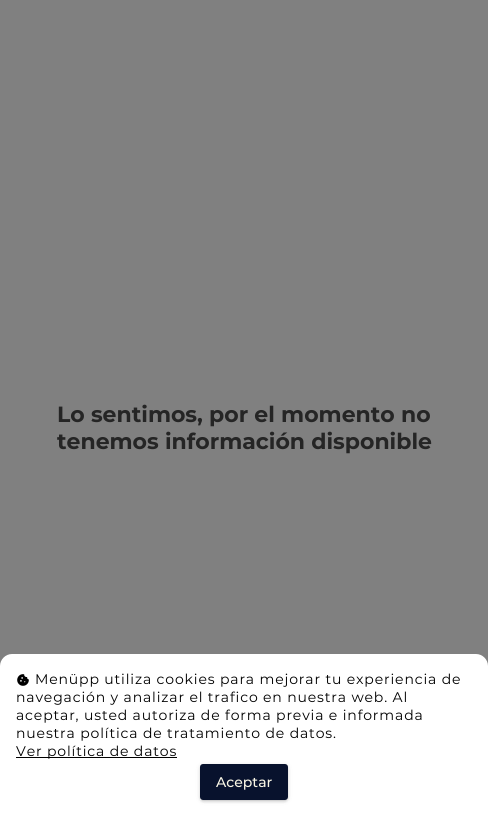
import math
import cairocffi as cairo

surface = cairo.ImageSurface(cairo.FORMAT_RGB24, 488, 816)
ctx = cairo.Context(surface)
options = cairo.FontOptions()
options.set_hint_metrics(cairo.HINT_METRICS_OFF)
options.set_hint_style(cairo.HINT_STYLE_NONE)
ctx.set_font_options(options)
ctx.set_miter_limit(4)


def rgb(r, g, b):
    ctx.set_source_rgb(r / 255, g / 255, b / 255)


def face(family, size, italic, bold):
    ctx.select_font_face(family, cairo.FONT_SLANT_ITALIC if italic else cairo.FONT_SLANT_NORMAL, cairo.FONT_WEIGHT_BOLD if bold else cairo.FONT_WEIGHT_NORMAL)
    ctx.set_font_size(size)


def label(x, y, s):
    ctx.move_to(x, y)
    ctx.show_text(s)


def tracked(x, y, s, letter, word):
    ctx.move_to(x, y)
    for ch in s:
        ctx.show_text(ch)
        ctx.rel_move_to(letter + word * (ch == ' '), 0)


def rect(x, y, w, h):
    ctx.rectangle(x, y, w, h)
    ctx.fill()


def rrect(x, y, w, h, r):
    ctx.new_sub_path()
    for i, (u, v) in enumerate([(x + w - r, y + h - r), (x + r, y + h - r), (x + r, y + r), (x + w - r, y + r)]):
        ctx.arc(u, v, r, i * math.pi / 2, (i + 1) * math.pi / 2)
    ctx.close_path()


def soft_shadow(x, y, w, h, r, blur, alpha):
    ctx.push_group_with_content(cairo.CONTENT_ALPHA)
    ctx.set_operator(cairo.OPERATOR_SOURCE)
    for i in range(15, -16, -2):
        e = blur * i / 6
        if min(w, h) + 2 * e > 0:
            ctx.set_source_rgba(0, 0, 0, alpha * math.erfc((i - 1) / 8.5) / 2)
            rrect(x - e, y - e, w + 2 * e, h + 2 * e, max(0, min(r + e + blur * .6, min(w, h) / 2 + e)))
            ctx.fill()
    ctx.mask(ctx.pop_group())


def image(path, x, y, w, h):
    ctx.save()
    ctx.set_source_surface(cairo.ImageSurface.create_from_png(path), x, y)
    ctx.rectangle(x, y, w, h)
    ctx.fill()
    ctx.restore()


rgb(128, 128, 128)
ctx.paint()
face('Montserrat', 22, 0, 1)
rgb(37, 37, 37)
label(57, 422, 'Lo sentimos, por el momento no')
label(57, 449, 'tenemos información disponible')
rgb(255, 255, 255)
ctx.new_path()
ctx.move_to(12, 654)
ctx.line_to(476, 654)
ctx.curve_to(482.5, 654, 488, 659.5, 488, 666)
ctx.line_to(488, 816)
ctx.line_to(0, 816)
ctx.line_to(0, 666)
ctx.curve_to(0, 659.5, 5.5, 654, 12, 654)
ctx.close_path()
ctx.fill()
image('image0.png', 17, 674, 12, 12)
face('Montserrat', 14, 0, 0)
rgb(0, 0, 0)
tracked(35, 684, 'Menüpp utiliza cookies para mejorar tu experiencia de', 0.85, 0)
tracked(16, 702, 'navegación y analizar el trafico en nuestra web. Al', 0.85, 0)
tracked(16, 720, 'aceptar, usted autoriza de forma previa e informada', 0.85, 0)
tracked(16, 738, 'nuestra política de tratamiento de datos.', 0.85, 0)
rect(16, 757, 161, 1)
tracked(16, 756, 'Ver política de datos', 0.85, 0)
rgb(8, 18, 45)
rrect(200, 764, 88, 36, 3)
ctx.fill()
ctx.save()
ctx.rectangle(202, 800, 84, 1)
ctx.clip()
rgb(0, 0, 0)
soft_shadow(202, 769, 84, 32, 1, 0.5, 0.06)
ctx.restore()
ctx.save()
ctx.set_fill_rule(cairo.FILL_RULE_EVEN_ODD)
ctx.new_path()
ctx.move_to(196, 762)
ctx.line_to(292, 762)
ctx.line_to(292, 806)
ctx.line_to(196, 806)
ctx.close_path()
ctx.move_to(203, 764)
ctx.line_to(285, 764)
ctx.curve_to(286.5, 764, 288, 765.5, 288, 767)
ctx.line_to(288, 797)
ctx.curve_to(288, 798.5, 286.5, 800, 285, 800)
ctx.line_to(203, 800)
ctx.curve_to(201.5, 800, 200, 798.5, 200, 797)
ctx.line_to(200, 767)
ctx.curve_to(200, 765.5, 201.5, 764, 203, 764)
ctx.close_path()
ctx.clip()
rgb(0, 0, 0)
soft_shadow(200, 766, 88, 36, 3, 1, 0.08)
ctx.restore()
ctx.save()
ctx.set_fill_rule(cairo.FILL_RULE_EVEN_ODD)
ctx.new_path()
ctx.move_to(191, 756)
ctx.line_to(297, 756)
ctx.line_to(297, 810)
ctx.line_to(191, 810)
ctx.close_path()
ctx.move_to(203, 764)
ctx.line_to(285, 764)
ctx.curve_to(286.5, 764, 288, 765.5, 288, 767)
ctx.line_to(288, 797)
ctx.curve_to(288, 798.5, 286.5, 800, 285, 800)
ctx.line_to(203, 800)
ctx.curve_to(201.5, 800, 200, 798.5, 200, 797)
ctx.line_to(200, 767)
ctx.curve_to(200, 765.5, 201.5, 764, 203, 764)
ctx.close_path()
ctx.clip()
rgb(0, 0, 0)
soft_shadow(200, 765, 88, 36, 3, 2.5, 0.12)
ctx.restore()
face('Montserrat Medium', 14, 0, 0)
rgb(249, 246, 229)
label(216, 787, 'Aceptar')
surface.write_to_png('render.png')
